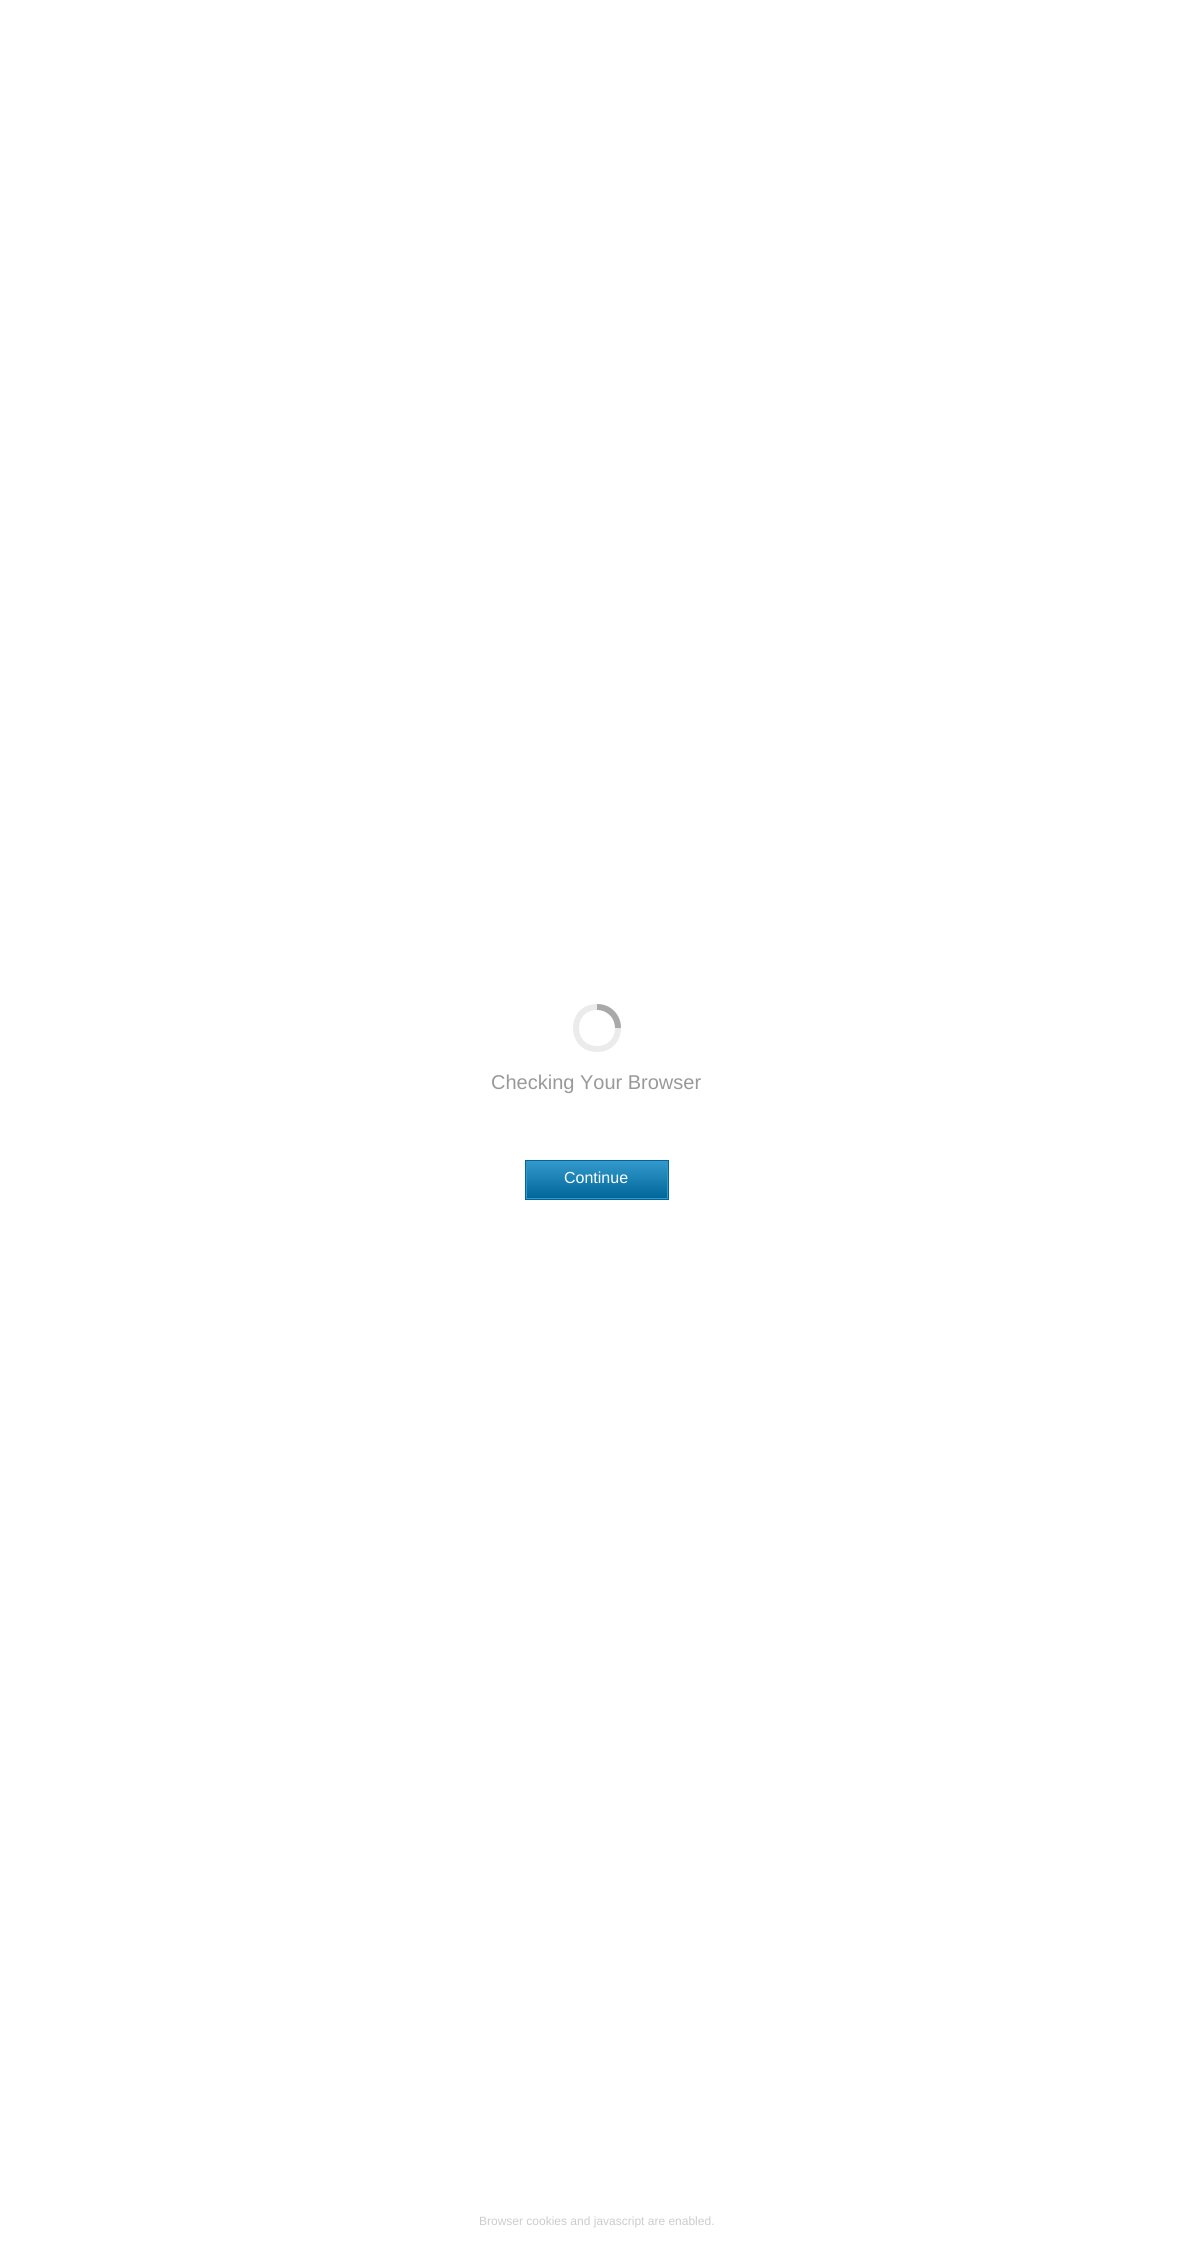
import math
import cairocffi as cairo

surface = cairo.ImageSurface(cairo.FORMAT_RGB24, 1193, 2247)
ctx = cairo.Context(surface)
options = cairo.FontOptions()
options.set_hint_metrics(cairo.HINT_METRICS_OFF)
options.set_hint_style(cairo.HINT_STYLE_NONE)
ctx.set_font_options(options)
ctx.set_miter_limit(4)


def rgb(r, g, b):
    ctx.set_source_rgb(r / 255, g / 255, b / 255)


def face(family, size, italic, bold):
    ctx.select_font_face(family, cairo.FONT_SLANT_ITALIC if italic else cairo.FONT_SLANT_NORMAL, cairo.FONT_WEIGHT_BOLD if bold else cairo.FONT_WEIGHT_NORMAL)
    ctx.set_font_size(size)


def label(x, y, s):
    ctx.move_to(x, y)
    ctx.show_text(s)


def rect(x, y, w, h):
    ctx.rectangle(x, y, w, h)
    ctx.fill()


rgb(255, 255, 255)
ctx.paint()
rgb(235, 235, 235)
ctx.new_path()
ctx.move_to(597, 1004)
ctx.curve_to(565, 1004, 565, 1052, 597, 1052)
ctx.curve_to(629, 1052, 629, 1004, 597, 1004)
ctx.move_to(597, 1010)
ctx.curve_to(621, 1010, 621, 1046, 597, 1046)
ctx.curve_to(573, 1046, 573, 1010, 597, 1010)
ctx.fill()
ctx.set_source_rgba(0.6, 0.6, 0.6, 0.8)
ctx.new_path()
ctx.move_to(597, 1004)
ctx.curve_to(610.5, 1004, 621, 1014.5, 621, 1028)
ctx.line_to(615, 1028)
ctx.curve_to(615, 1018, 607, 1010, 597, 1010)
ctx.close_path()
ctx.fill()
face('Liberation Sans', 20, 0, 0)
rgb(153, 153, 153)
label(491, 1089, 'Checking Your Browser')
rgb(0, 102, 153)
ctx.rectangle(526, 1161, 142, 38)
ctx.fill_preserve()
rgb(51, 153, 204)
ctx.stroke()
gradient = cairo.LinearGradient(597, 1161, 597, 1199)
gradient.add_color_stop_rgba(0, 0.2, 0.6, 0.8, 1)
gradient.add_color_stop_rgba(1, 0.2, 0.6, 0.8, 0)
ctx.set_source(gradient)
rect(527, 1162, 140, 35)
ctx.rectangle(525.5, 1160.5, 143, 39)
rgb(0, 102, 153)
ctx.set_line_width(1)
ctx.stroke()
face('Liberation Sans', 16, 0, 0)
rgb(255, 255, 255)
label(564, 1183, 'Continue')
face('Liberation Sans', 12, 0, 0)
rgb(204, 204, 204)
label(479, 2225, 'Browser cookies and javascript are enabled.')
surface.write_to_png('render.png')
